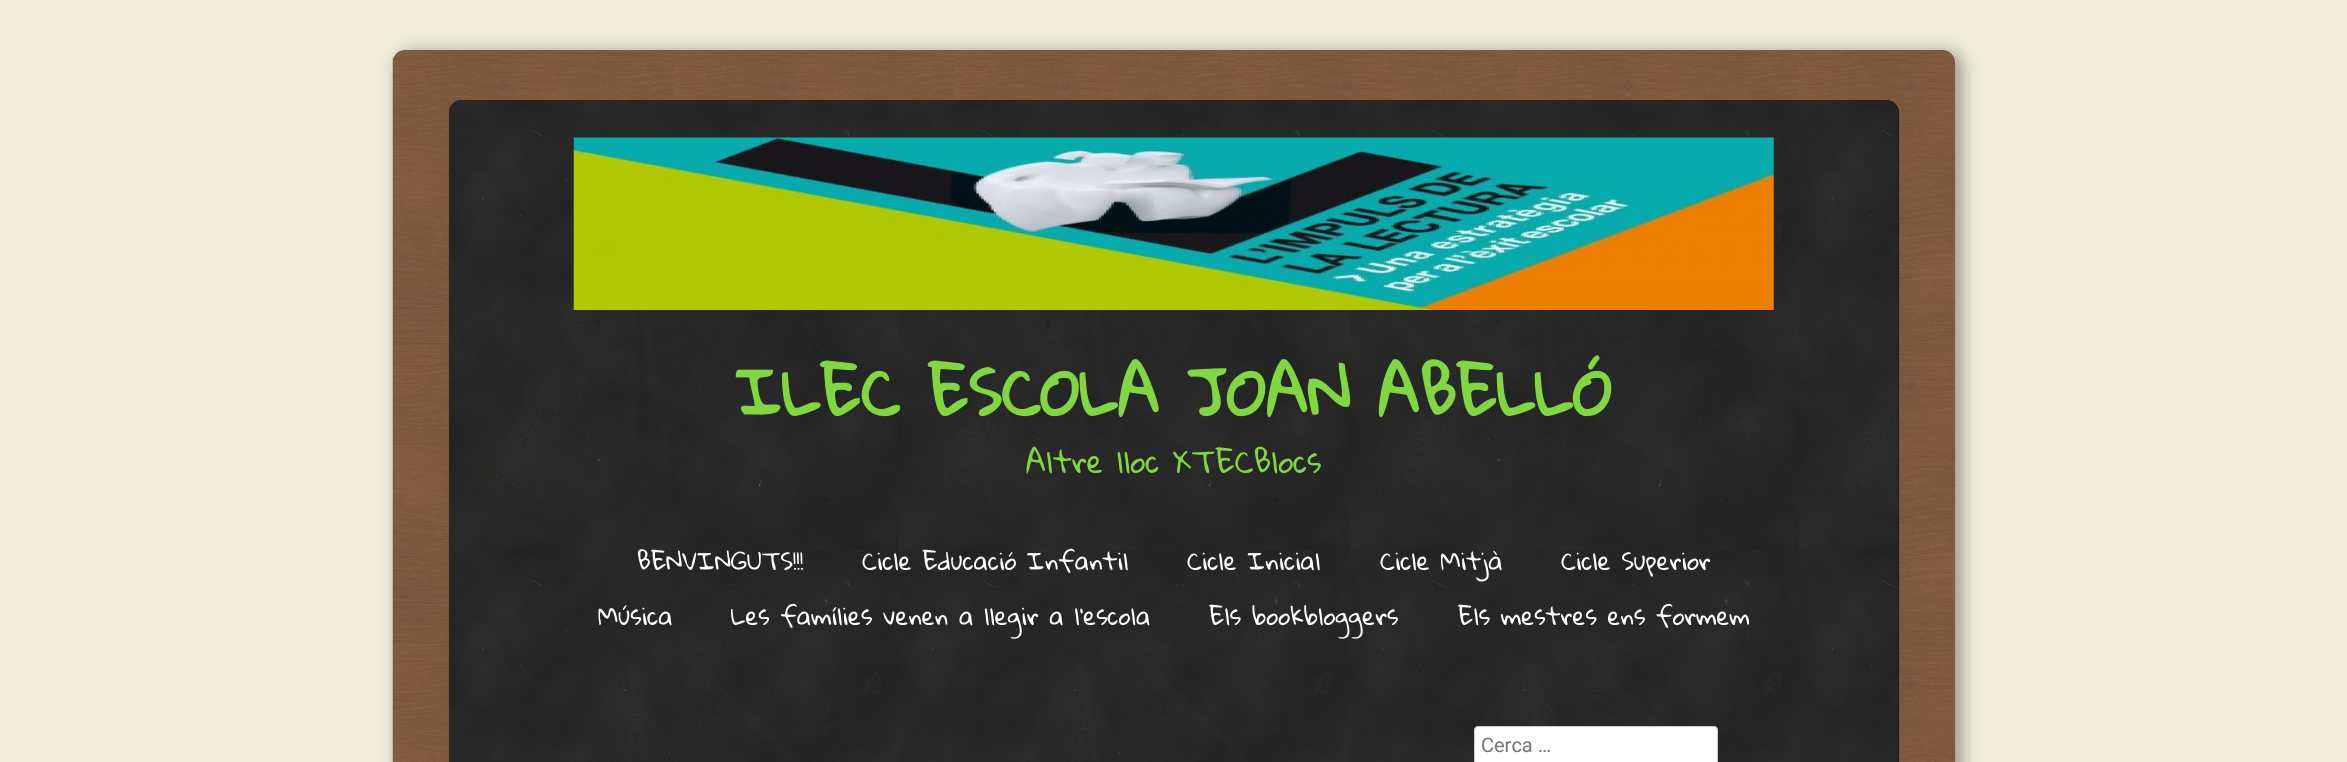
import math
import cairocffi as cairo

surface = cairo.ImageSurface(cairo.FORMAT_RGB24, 2347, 762)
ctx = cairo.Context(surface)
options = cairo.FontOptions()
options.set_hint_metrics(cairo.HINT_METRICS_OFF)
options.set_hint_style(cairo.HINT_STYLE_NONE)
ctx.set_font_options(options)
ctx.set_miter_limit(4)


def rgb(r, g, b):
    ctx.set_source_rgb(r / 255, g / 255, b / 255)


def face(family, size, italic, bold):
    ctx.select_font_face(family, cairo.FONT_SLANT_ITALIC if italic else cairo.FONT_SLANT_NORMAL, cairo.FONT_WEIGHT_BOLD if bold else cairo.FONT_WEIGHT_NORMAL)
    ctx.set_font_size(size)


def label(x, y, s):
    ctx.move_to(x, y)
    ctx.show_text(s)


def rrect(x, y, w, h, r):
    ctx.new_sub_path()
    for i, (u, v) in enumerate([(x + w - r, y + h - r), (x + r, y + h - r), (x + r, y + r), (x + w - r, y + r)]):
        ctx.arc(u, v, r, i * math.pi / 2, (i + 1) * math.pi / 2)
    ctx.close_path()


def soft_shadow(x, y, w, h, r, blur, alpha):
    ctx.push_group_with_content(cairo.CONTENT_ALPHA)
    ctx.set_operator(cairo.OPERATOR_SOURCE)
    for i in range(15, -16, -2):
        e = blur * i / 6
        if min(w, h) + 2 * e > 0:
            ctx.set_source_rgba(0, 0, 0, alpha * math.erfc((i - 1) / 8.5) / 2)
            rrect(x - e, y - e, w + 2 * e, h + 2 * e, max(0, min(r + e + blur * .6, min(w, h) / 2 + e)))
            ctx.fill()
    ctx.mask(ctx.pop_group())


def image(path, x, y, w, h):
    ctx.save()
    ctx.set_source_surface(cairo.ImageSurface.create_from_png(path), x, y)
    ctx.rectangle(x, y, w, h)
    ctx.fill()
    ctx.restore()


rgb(241, 238, 220)
ctx.paint()
rgb(0, 0, 0)
soft_shadow(399, 53, 1562, 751, 13, 9.5, 0.4)
image('image0.png', 392, 50, 1563, 712)
rgb(0, 0, 0)
rrect(449, 100, 1450, 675, 13)
ctx.fill()
image('image1.png', 448, 100, 1451, 662)
image('image2.png', 573, 137, 1201, 173)
face('Gloria Hallelujah', 62.5, 0, 1)
rgb(129, 215, 66)
label(735, 416, 'ILEC ESCOLA JOAN ABELLÓ')
face('Gloria Hallelujah', 30, 0, 0)
label(1026, 473, 'Altre lloc XTECBlocs')
face('Gloria Hallelujah', 23.75, 0, 0)
rgb(255, 255, 255)
label(637, 570, 'BENVINGUTS!!!')
label(862, 570, 'Cicle Educació Infantil')
label(1187, 570, 'Cicle Inicial')
label(1380, 570, 'Cicle Mitjà')
label(1561, 570, 'Cicle Superior')
label(598, 625, 'Música')
label(731, 625, 'Les famílies venen a llegir a l’escola')
label(1209, 625, 'Els bookbloggers')
label(1458, 625, 'Els mestres ens formem')
rrect(1474.5, 726.5, 243, 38, 3.5)
ctx.fill_preserve()
rgb(204, 204, 204)
ctx.set_line_width(1)
ctx.stroke()
face('Roboto', 20, 0, 0)
rgb(117, 117, 117)
label(1481, 752, 'Cerca …')
surface.write_to_png('render.png')
